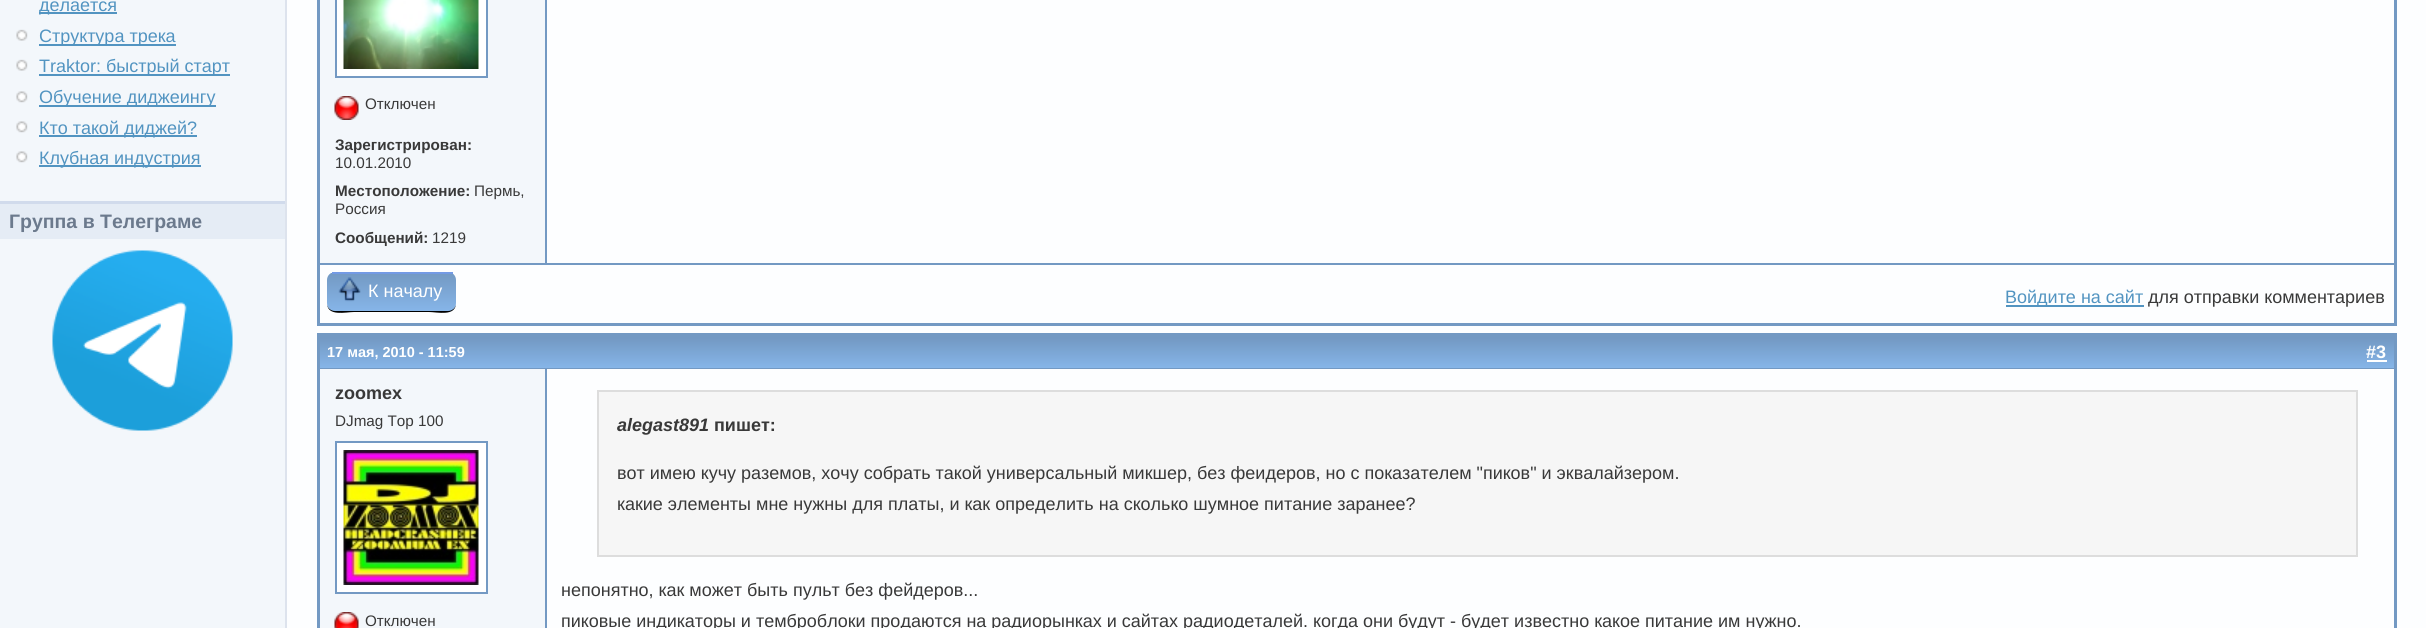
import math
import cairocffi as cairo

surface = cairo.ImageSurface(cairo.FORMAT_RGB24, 2426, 628)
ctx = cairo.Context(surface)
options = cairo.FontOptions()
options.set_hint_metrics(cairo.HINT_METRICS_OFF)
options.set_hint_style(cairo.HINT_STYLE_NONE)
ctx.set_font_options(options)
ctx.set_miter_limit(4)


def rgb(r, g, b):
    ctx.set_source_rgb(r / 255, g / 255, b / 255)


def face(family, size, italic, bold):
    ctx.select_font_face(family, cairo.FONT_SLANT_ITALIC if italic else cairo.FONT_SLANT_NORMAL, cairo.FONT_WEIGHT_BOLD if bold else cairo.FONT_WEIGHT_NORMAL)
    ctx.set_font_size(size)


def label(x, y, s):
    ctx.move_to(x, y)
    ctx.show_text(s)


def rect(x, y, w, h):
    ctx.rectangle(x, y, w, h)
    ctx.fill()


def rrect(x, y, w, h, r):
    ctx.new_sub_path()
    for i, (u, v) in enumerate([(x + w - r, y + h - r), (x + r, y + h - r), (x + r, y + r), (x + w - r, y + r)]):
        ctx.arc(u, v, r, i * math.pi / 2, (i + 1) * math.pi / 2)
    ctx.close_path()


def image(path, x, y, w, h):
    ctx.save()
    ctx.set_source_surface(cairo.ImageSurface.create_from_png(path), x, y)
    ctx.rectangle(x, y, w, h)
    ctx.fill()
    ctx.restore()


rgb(243, 247, 251)
ctx.paint()
rgb(82, 148, 193)
rect(39, 12, 78, 2)
face('Liberation Sans', 18, 0, 0)
label(39, 11, 'делается')
image('image0.png', 16, 29, 12, 12)
rect(39, 44, 137, 2)
label(39, 42, 'Структура трека')
image('image0.png', 16, 59, 12, 12)
rect(39, 74, 191, 2)
label(39, 72, 'Traktor: быстрый старт')
image('image1.png', 16, 91, 12, 12)
rect(39, 105, 177, 2)
label(39, 103, 'Обучение диджеингу')
image('image1.png', 16, 121, 12, 12)
rect(39, 135, 158, 2)
label(39, 134, 'Кто такой диджей?')
image('image1.png', 16, 151, 12, 12)
rect(39, 165, 162, 2)
label(39, 164, 'Клубная индустрия')
rgb(229, 236, 245)
rect(0, 204, 285, 35)
rgb(209, 219, 236)
rect(0, 201, 285, 3)
face('Liberation Sans', 19.5, 0, 1)
rgb(108, 122, 141)
label(9, 228, 'Группа в Телеграме')
image('image2.png', 52, 250, 181, 181)
rgb(253, 254, 255)
rect(287, 0, 2139, 628)
rgb(221, 227, 237)
rect(285, 0, 2, 628)
ctx.rectangle(318.5, -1.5, 2077, 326)
rgb(115, 153, 195)
ctx.set_line_width(3)
ctx.stroke()
rgb(243, 247, 251)
rect(320, 0, 225, 263)
rgb(255, 255, 255)
ctx.rectangle(336, -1, 151, 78)
ctx.fill_preserve()
rgb(115, 153, 195)
ctx.set_line_width(2)
ctx.stroke()
image('image3.png', 343, 0, 136, 69)
image('image4.png', 334, 96, 25, 24)
face('Liberation Sans', 15.25, 0, 0)
rgb(57, 57, 57)
label(365, 109, 'Отключен')
face('Liberation Sans', 15.25, 0, 1)
label(335, 150, 'Зарегистрирован:')
face('Liberation Sans', 15.25, 0, 0)
label(335, 168, '10.01.2010')
face('Liberation Sans', 15.25, 0, 1)
label(335, 196, 'Местоположение:')
face('Liberation Sans', 15.25, 0, 0)
label(474, 196, 'Пермь,')
label(335, 214, 'Россия')
face('Liberation Sans', 15.25, 0, 1)
label(335, 243, 'Сообщений:')
face('Liberation Sans', 15.25, 0, 0)
label(432, 243, '1219')
rgb(115, 153, 195)
rect(545, 0, 2, 263)
rect(320, 263, 2074, 2)
rgb(0, 0, 0)
ctx.new_path()
ctx.move_to(327, 303)
ctx.curve_to(327, 317, 346, 312, 354, 312)
ctx.line_to(429, 312)
ctx.curve_to(437, 312, 456, 317, 456, 303)
ctx.curve_to(456, 307, 453, 310, 448, 310)
ctx.line_to(334, 310)
ctx.curve_to(330, 310, 327, 307, 327, 303)
ctx.close_path()
ctx.fill()
ctx.save()
rrect(327, 272, 129, 39, 8)
ctx.clip()
gradient = cairo.LinearGradient(327, 273, 327, 311)
gradient.add_color_stop_rgba(0, 0.451, 0.6, 0.765, 1)
gradient.add_color_stop_rgba(1, 0.525, 0.71, 0.91, 1)
ctx.set_source(gradient)
ctx.new_path()
ctx.move_to(327, 273)
ctx.line_to(456, 273)
ctx.line_to(456, 303)
ctx.curve_to(456, 307.5, 452.5, 311, 448, 311)
ctx.line_to(335, 311)
ctx.curve_to(330.5, 311, 327, 307.5, 327, 303)
ctx.close_path()
ctx.fill()
ctx.restore()
rgb(115, 154, 228)
rect(332, 272, 121, 2)
image('image5.png', 338, 277, 23, 25)
face('Liberation Sans', 18, 0, 0)
rgb(255, 255, 255)
label(368, 297, 'К началу')
rgb(82, 148, 193)
rect(2006, 305, 138, 2)
label(2005, 303, 'Войдите на сайт')
rgb(57, 57, 57)
label(2148, 303, 'для отправки комментариев')
ctx.rectangle(318.5, 334.5, 2077, 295)
rgb(115, 153, 195)
ctx.set_line_width(3)
ctx.stroke()
gradient = cairo.LinearGradient(320, 338, 320, 368)
gradient.add_color_stop_rgba(0, 0.451, 0.6, 0.765, 1)
gradient.add_color_stop_rgba(1, 0.525, 0.71, 0.91, 1)
ctx.set_source(gradient)
rect(320, 338, 2074, 30)
rgb(115, 153, 195)
rect(320, 336, 2074, 2)
rect(320, 368, 2074, 1)
face('Liberation Sans', 14.5, 0, 1)
rgb(255, 255, 255)
label(327, 357, '17 мая, 2010 - 11:59')
face('Liberation Sans', 18, 0, 1)
label(2366, 358, '#3')
rect(2367, 360, 20, 2)
rgb(243, 247, 251)
rect(320, 369, 225, 259)
rgb(57, 57, 57)
label(335, 399, 'zoomex')
face('Liberation Sans', 15.25, 0, 0)
label(335, 426, 'DJmag Top 100')
rgb(255, 255, 255)
ctx.rectangle(336, 442, 151, 151)
ctx.fill_preserve()
rgb(115, 153, 195)
ctx.set_line_width(2)
ctx.stroke()
image('image6.png', 343, 450, 136, 135)
image('image7.png', 334, 612, 25, 16)
rgb(57, 57, 57)
label(365, 626, 'Отключен')
rgb(115, 153, 195)
rect(545, 369, 2, 259)
rgb(246, 246, 246)
ctx.rectangle(598, 391, 1759, 165)
ctx.fill_preserve()
rgb(221, 221, 221)
ctx.stroke()
face('Liberation Sans', 18, 1, 1)
rgb(57, 57, 57)
label(617, 431, 'alegast891')
face('Liberation Sans', 18, 0, 1)
label(714, 431, 'пишет:')
face('Liberation Sans', 18, 0, 0)
label(617, 479, 'вот имею кучу раземов, хочу собрать такой универсальный микшер, без феидеров, но с показателем "пиков" и эквалайзером.')
label(617, 510, 'какие элементы мне нужны для платы, и как определить на сколько шумное питание заранее?')
label(561, 596, 'непонятно, как может быть пульт без фейдеров...')
label(561, 627, 'пиковые индикаторы и темброблоки продаются на радиорынках и сайтах радиодеталей. когда они будут - будет известно какое питание им нужно.')
surface.write_to_png('render.png')
